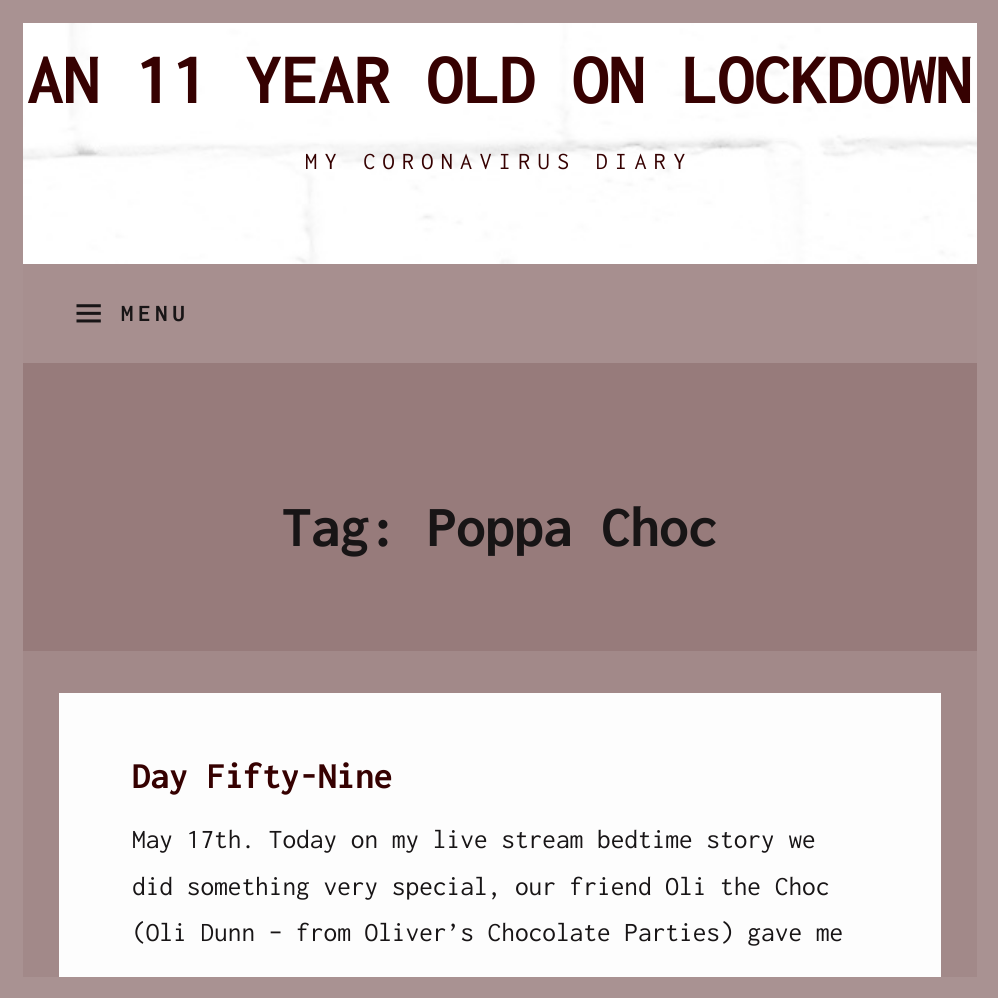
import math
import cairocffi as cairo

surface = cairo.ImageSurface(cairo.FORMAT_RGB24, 998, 998)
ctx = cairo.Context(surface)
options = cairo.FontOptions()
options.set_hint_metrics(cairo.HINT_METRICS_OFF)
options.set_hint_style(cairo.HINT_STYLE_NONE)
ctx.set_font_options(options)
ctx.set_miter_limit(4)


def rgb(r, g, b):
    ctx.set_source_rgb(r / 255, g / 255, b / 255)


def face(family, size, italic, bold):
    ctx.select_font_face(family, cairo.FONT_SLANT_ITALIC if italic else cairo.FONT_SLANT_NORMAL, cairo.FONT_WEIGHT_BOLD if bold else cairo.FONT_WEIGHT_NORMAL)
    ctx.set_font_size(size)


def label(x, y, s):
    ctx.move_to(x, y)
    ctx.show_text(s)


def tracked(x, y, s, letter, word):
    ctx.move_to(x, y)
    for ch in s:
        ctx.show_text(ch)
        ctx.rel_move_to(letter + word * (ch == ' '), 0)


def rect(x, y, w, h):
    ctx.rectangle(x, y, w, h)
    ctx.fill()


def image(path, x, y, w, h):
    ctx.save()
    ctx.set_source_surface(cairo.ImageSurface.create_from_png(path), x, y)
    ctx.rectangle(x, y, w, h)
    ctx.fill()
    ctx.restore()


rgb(255, 255, 255)
ctx.paint()
image('image0.png', 23, 23, 954, 241)
rgb(169, 146, 146)
rect(977, 23, 21, 954)
rect(0, 23, 23, 954)
rect(0, 0, 998, 23)
face('Inconsolata', 74.2, 0, 1)
rgb(54, 1, 1)
tracked(27, 103, 'AN 11 YEAR OLD ON LOCKDOWN', -0.75, 0)
face('Inconsolata', 24.25, 0, 0)
tracked(305, 169, 'MY CORONAVIRUS DIARY', 7.25, 0)
rgb(167, 143, 143)
rect(23, 264, 954, 99)
image('image1.png', 76, 304, 25, 19)
face('Inconsolata', 24.25, 0, 1)
rgb(24, 21, 22)
tracked(121, 321, 'MENU', 5, 0)
rgb(151, 123, 123)
rect(23, 363, 954, 288)
face('Inconsolata', 59.25, 0, 1)
rgb(24, 21, 22)
tracked(282, 546, 'Tag: Poppa Choc', -0.6, 0)
rgb(162, 137, 137)
rect(23, 651, 954, 326)
rgb(253, 253, 253)
rect(59, 693, 882, 284)
face('Inconsolata', 38, 0, 1)
rgb(54, 1, 1)
tracked(132, 788, 'Day Fifty-Nine', -0.4, 0)
face('Inconsolata', 27.35, 0, 0)
rgb(24, 21, 22)
label(132, 848, 'May 17th. Today on my live stream bedtime story we')
label(132, 895, 'did something very special, our friend Oli the Choc')
label(132, 941, '(Oli Dunn – from Oliver’s Chocolate Parties) gave me')
rgb(169, 146, 146)
rect(0, 977, 998, 21)
surface.write_to_png('render.png')
